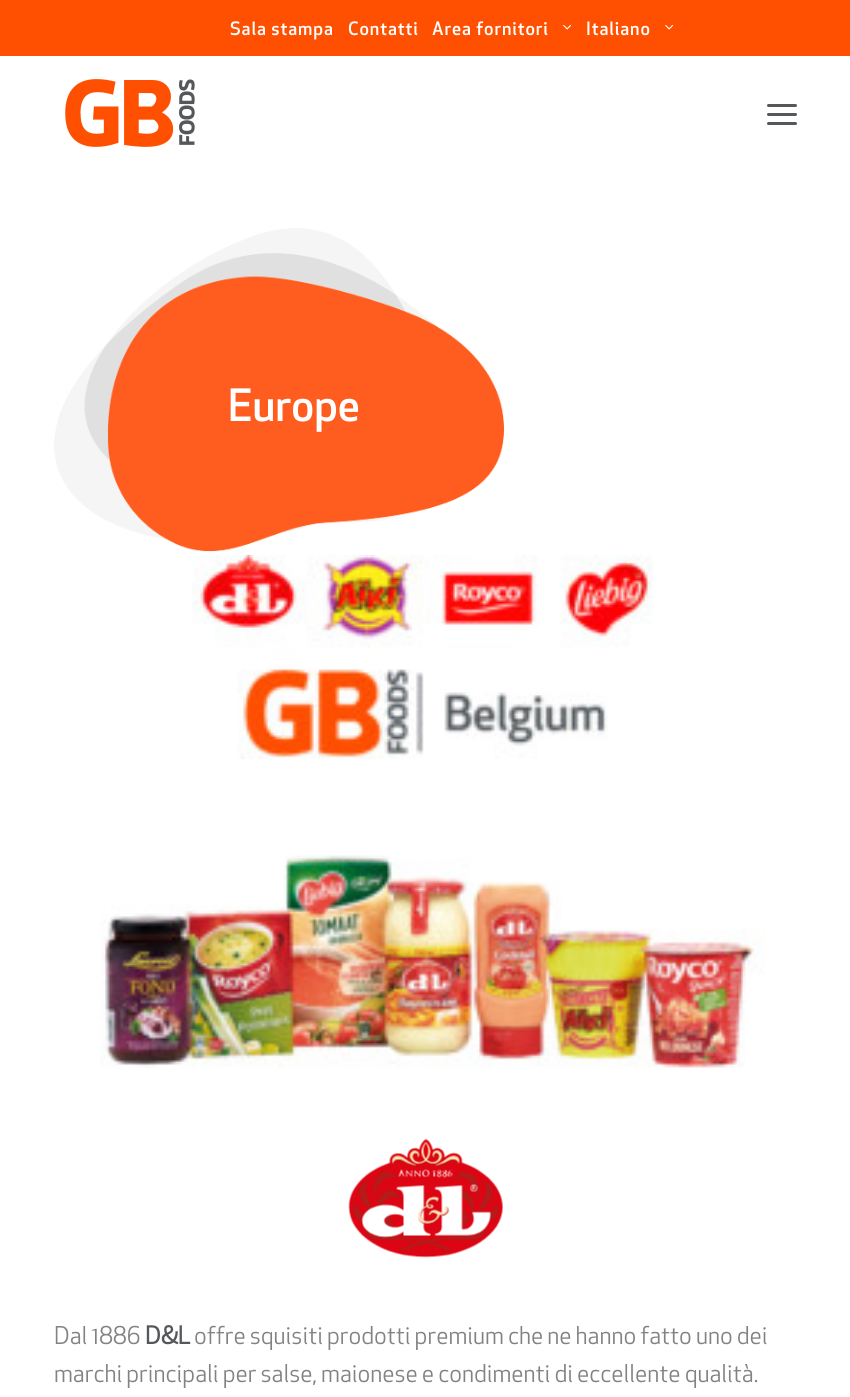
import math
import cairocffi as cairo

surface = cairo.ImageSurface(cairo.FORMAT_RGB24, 850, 1397)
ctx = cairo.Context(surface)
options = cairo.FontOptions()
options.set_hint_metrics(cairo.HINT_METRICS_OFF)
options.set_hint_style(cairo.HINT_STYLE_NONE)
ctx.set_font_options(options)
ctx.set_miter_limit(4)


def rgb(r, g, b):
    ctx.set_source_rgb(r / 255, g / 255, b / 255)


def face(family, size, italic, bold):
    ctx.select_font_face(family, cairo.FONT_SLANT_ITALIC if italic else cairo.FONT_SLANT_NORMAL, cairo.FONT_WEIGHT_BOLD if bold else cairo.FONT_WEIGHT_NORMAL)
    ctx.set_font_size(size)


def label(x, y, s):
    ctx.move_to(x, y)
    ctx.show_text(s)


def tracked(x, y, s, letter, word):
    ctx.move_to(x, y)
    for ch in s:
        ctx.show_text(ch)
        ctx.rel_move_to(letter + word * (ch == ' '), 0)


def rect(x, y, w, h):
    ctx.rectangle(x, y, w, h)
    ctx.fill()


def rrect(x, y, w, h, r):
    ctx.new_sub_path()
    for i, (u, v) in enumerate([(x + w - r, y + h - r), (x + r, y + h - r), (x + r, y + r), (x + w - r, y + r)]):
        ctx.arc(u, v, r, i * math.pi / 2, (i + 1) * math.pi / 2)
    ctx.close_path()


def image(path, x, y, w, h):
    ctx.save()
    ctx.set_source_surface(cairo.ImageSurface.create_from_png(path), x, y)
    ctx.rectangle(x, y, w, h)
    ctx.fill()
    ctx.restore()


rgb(255, 255, 255)
ctx.paint()
rgb(254, 80, 0)
rect(0, 0, 850, 56)
face('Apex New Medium', 18, 0, 0)
rgb(255, 255, 255)
tracked(230, 35, 'Sala stampa', 0.9, 0)
tracked(348, 35, 'Contatti', 0.9, 0)
tracked(432, 35, 'Area fornitori', 0.9, 0)
image('image0.png', 563, 24, 9, 6)
tracked(586, 35, 'Italiano', 0.9, 0)
image('image0.png', 665, 24, 9, 6)
image('image1.png', 65, 79, 130, 68)
rgb(84, 88, 90)
rrect(767, 113, 30, 3, 1.5)
ctx.fill()
rrect(767, 104, 30, 3, 1.5)
ctx.fill()
rrect(767, 122, 30, 3, 1.5)
ctx.fill()
image('image2.png', 54, 228, 450, 324)
face('Apex New Medium', 43.5, 0, 0)
rgb(255, 255, 255)
label(228, 421, 'Europe')
image('image3.png', 191, 555, 463, 204)
image('image4.png', 100, 855, 665, 213)
image('image5.png', 348, 1138, 156, 120)
face('Apex New', 24, 0, 0)
rgb(130, 130, 130)
label(54, 1344, 'Dal 1886')
face('Apex New', 24, 0, 1)
rgb(84, 88, 90)
label(145, 1344, 'D&L')
face('Apex New', 24, 0, 0)
rgb(130, 130, 130)
label(194, 1344, 'offre squisiti prodotti premium che ne hanno fatto uno dei')
label(54, 1382, 'marchi principali per salse, maionese e condimenti di eccellente qualità.')
surface.write_to_png('render.png')
